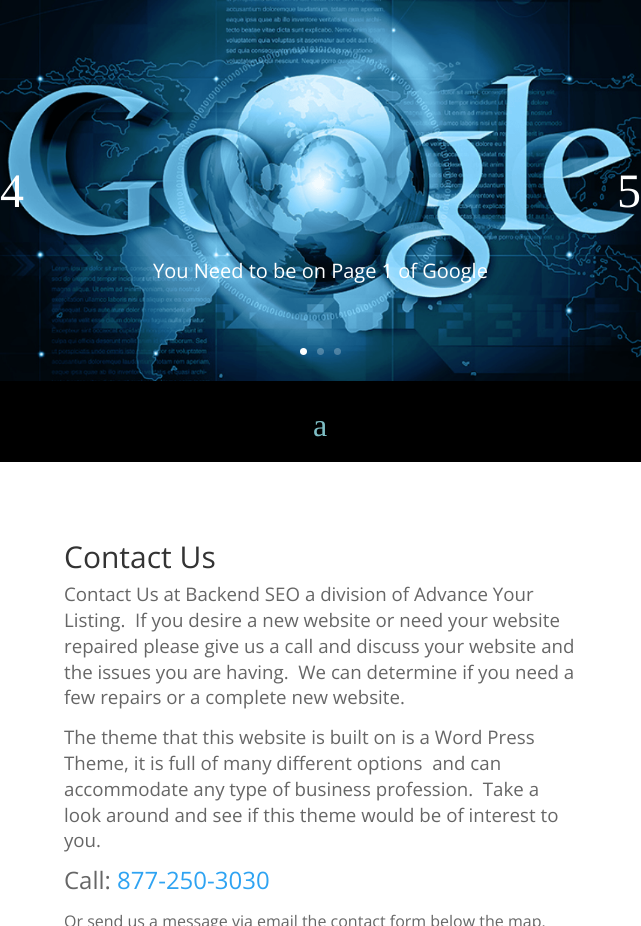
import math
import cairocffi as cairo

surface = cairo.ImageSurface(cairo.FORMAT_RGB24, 641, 926)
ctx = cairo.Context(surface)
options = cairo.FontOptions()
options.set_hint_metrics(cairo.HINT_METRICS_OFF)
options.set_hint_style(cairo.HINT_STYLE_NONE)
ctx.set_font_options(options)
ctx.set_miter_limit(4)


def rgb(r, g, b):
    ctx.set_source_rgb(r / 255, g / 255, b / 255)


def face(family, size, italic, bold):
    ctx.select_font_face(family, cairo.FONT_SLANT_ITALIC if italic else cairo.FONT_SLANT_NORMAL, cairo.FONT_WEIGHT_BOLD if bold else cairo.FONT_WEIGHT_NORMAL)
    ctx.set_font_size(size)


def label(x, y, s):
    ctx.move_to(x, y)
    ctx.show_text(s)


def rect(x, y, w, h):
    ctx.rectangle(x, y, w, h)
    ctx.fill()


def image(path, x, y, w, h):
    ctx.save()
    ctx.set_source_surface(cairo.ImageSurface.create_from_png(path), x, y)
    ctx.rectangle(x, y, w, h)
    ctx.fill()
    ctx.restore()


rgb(255, 255, 255)
ctx.paint()
image('image0.png', 0, 0, 641, 381)
face('Liberation Serif', 48, 0, 0)
rgb(255, 255, 255)
label(0, 207, '4')
label(617, 207, '5')
face('Open Sans', 20, 0, 0)
label(153, 278, 'You Need to be on Page 1 of Google')
ctx.new_path()
ctx.arc(303.5, 351.5, 3.5, 0, 2 * math.pi)
ctx.fill()
ctx.set_source_rgba(1, 1, 1, 0.25)
ctx.arc(320.5, 351.5, 3.5, 0, 2 * math.pi)
ctx.fill()
ctx.arc(337.5, 351.5, 3.5, 0, 2 * math.pi)
ctx.fill()
rgb(0, 0, 0)
rect(0, 381, 641, 81)
face('Liberation Serif', 32, 0, 0)
rgb(126, 190, 197)
label(313, 436, 'a')
face('Open Sans', 30, 0, 0)
rgb(51, 51, 51)
label(64, 568, 'Contact Us')
face('Open Sans', 18.7, 0, 0)
rgb(102, 102, 102)
label(64, 601, 'Contact Us at Backend SEO a division of Advance Your')
label(64, 627, 'Listing.  If you desire a new website or need your website')
label(64, 653, 'repaired please give us a call and discuss your website and')
label(64, 679, 'the issues you are having.  We can determine if you need a')
label(64, 704, 'few repairs or a complete new website.')
label(64, 744, 'The theme that this website is built on is a Word Press')
label(64, 770, 'Theme, it is full of many different options  and can')
label(64, 796, 'accommodate any type of business profession.  Take a')
label(64, 822, 'look around and see if this theme would be of interest to')
label(64, 847, 'you.')
face('Open Sans', 24, 0, 0)
label(64, 889, 'Call:')
rgb(46, 163, 242)
label(117, 889, '877-250-3030')
face('Open Sans', 16, 0, 0)
rgb(102, 102, 102)
label(64, 927, 'Or send us a message via email the contact form below the map.')
surface.write_to_png('render.png')
